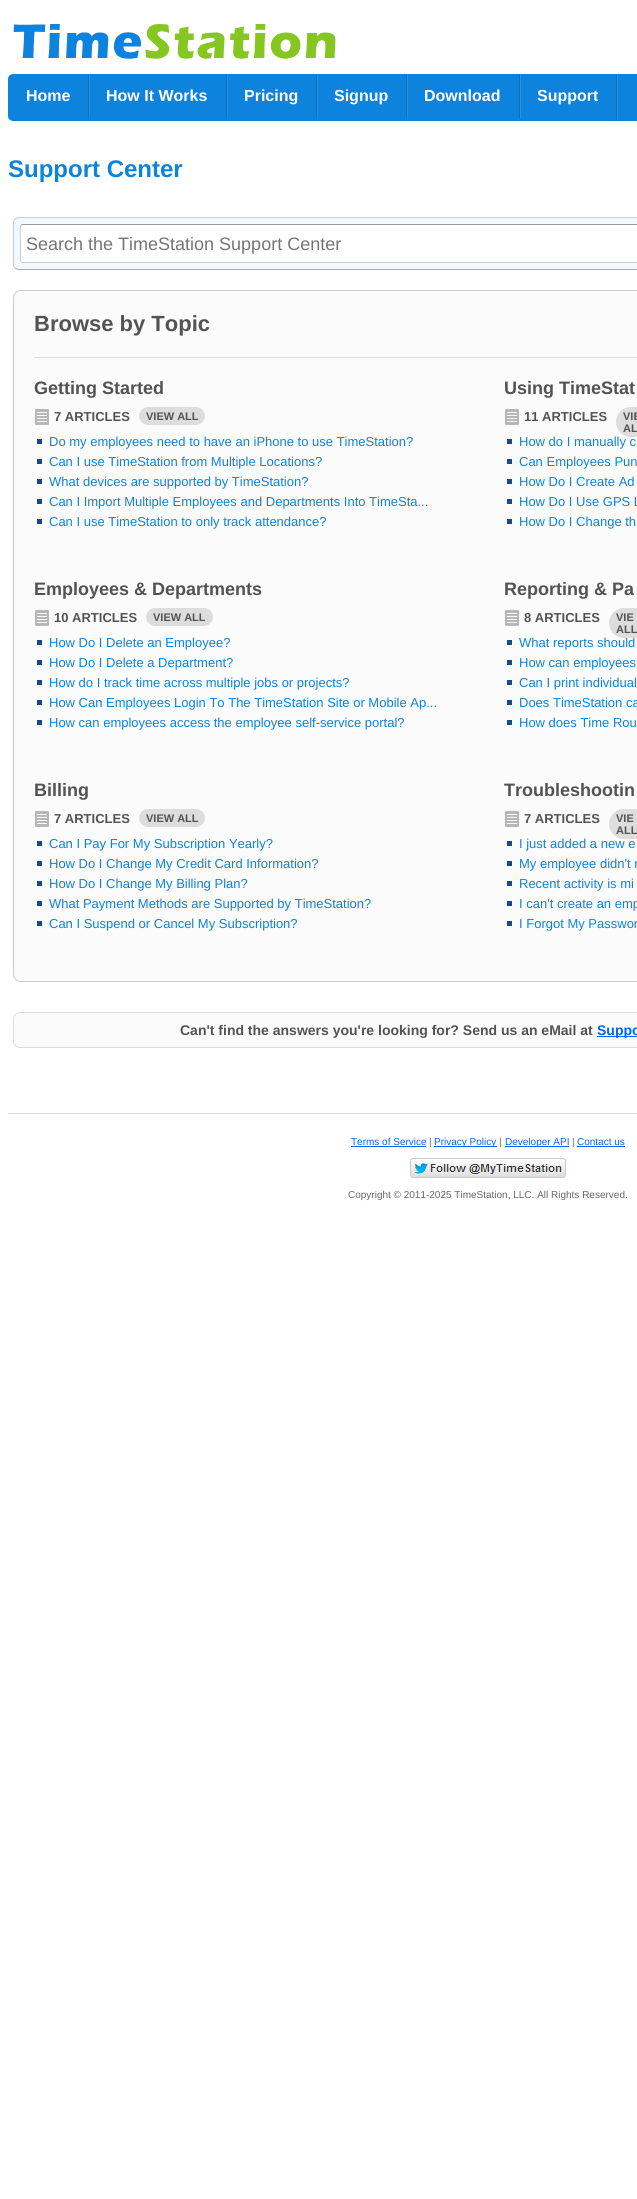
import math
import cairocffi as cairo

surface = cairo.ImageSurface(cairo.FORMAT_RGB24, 637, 2199)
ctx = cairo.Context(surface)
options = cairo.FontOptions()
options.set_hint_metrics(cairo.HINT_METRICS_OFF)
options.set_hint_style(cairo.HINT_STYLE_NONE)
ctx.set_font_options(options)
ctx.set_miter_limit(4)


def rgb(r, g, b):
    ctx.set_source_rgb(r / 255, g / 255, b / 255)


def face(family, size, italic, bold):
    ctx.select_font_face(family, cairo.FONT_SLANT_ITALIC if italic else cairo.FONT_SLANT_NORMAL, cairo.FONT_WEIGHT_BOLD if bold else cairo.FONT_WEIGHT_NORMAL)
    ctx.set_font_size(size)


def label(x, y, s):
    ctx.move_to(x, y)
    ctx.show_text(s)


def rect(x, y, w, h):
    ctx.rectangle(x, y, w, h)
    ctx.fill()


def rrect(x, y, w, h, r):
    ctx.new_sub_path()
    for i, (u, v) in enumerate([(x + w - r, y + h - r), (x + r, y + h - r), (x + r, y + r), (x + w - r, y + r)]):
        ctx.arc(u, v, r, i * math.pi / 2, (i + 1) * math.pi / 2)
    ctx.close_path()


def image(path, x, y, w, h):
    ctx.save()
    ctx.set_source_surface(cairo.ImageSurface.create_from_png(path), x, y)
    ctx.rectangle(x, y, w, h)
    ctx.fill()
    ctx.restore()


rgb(255, 255, 255)
ctx.paint()
image('image0.png', 13, 24, 323, 35)
image('image1.png', 8, 74, 629, 47)
face('Liberation Sans', 16, 0, 1)
rgb(255, 255, 255)
label(26, 101, 'Home')
image('image2.png', 88, 74, 2, 45)
label(106, 101, 'How It Works')
image('image2.png', 226, 74, 2, 45)
label(244, 101, 'Pricing')
image('image2.png', 316, 74, 2, 45)
label(334, 101, 'Signup')
image('image2.png', 406, 74, 2, 45)
label(424, 101, 'Download')
image('image2.png', 519, 74, 2, 45)
label(537, 101, 'Support')
image('image3.png', 616, 74, 2, 47)
face('Liberation Sans', 24, 0, 1)
rgb(13, 131, 221)
label(8, 177, 'Support Center')
rgb(242, 250, 255)
rrect(13, 217, 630, 53, 6)
ctx.fill()
ctx.new_path()
ctx.move_to(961, 268)
ctx.curve_to(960, 269, 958.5, 269.5, 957, 269.5)
ctx.line_to(19, 269.5)
ctx.curve_to(17.5, 269.5, 16, 269, 15, 268)
rgb(172, 172, 172)
ctx.set_line_width(1)
ctx.stroke()
ctx.new_path()
ctx.move_to(15, 268)
ctx.curve_to(14, 267, 13.5, 265.5, 13.5, 264)
ctx.line_to(13.5, 223)
ctx.curve_to(13.5, 221.5, 14, 220, 15, 219)
ctx.curve_to(16, 218, 17.5, 217.5, 19, 217.5)
ctx.line_to(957, 217.5)
ctx.curve_to(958.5, 217.5, 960, 218, 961, 219)
ctx.curve_to(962, 220, 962.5, 221.5, 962.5, 223)
ctx.line_to(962.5, 264)
ctx.curve_to(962.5, 265.5, 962, 267, 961, 268)
rgb(204, 204, 204)
ctx.stroke()
rgb(255, 255, 255)
rrect(20, 224, 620, 39, 3)
ctx.fill()
ctx.new_path()
ctx.move_to(21, 225)
ctx.line_to(23, 224.5)
ctx.line_to(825, 224.5)
ctx.line_to(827, 225)
rgb(153, 153, 153)
ctx.stroke()
ctx.new_path()
ctx.move_to(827, 225)
ctx.curve_to(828.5, 227, 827.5, 240.5, 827.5, 243.5)
ctx.line_to(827.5, 254.5)
ctx.curve_to(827.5, 256, 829, 262.5, 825, 262.5)
ctx.line_to(23, 262.5)
ctx.curve_to(19, 262.5, 20.5, 256, 20.5, 254.5)
ctx.line_to(20.5, 243.5)
ctx.curve_to(20.5, 240.5, 19.5, 227, 21, 225)
rgb(204, 204, 204)
ctx.stroke()
face('Liberation Sans', 18, 0, 0)
rgb(117, 117, 117)
label(26, 250, 'Search the TimeStation Support Center')
rgb(251, 251, 251)
rrect(13.5, 290.5, 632, 691, 7.5)
ctx.fill_preserve()
rgb(204, 204, 204)
ctx.stroke()
rgb(221, 221, 221)
rect(34, 357, 603, 1)
face('Liberation Sans', 22, 0, 1)
rgb(83, 83, 83)
label(34, 331, 'Browse by Topic')
face('Liberation Sans', 18, 0, 1)
label(34, 394, 'Getting Started')
image('image4.png', 35, 409, 14, 16)
face('Liberation Sans', 13, 0, 1)
label(54, 421, '7 ARTICLES')
rgb(221, 221, 221)
rrect(139, 407, 66, 18, 9)
ctx.fill()
face('Liberation Sans', 11, 0, 1)
rgb(83, 83, 83)
label(146, 420, 'VIEW ALL')
rgb(23, 72, 141)
rect(37, 439, 5, 5)
face('Liberation Sans', 13, 0, 0)
rgb(13, 131, 221)
label(49, 446, 'Do my employees need to have an iPhone to use TimeStation?')
rgb(23, 72, 141)
rect(37, 459, 5, 5)
rgb(13, 131, 221)
label(49, 466, 'Can I use TimeStation from Multiple Locations?')
rgb(23, 72, 141)
rect(37, 479, 5, 5)
rgb(13, 131, 221)
label(49, 486, 'What devices are supported by TimeStation?')
rgb(23, 72, 141)
rect(37, 499, 5, 5)
rgb(13, 131, 221)
label(49, 506, 'Can I Import Multiple Employees and Departments Into TimeSta...')
rgb(23, 72, 141)
rect(37, 519, 5, 5)
rgb(13, 131, 221)
label(49, 526, 'Can I use TimeStation to only track attendance?')
face('Liberation Sans', 18, 0, 1)
rgb(83, 83, 83)
label(504, 394, 'Using TimeStat')
image('image4.png', 505, 409, 14, 16)
face('Liberation Sans', 13, 0, 1)
label(524, 421, '11 ARTICLES')
face('Liberation Sans', 13, 0, 0)
rgb(13, 131, 221)
label(519, 446, 'How do I manually c')
rgb(221, 221, 221)
rrect(616, 407, 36, 30, 15)
ctx.fill()
face('Liberation Sans', 11, 0, 1)
rgb(83, 83, 83)
label(623, 420, 'VIE')
label(623, 432, 'AL')
rgb(23, 72, 141)
rect(507, 439, 5, 5)
rect(507, 459, 5, 5)
face('Liberation Sans', 13, 0, 0)
rgb(13, 131, 221)
label(519, 466, 'Can Employees Pun')
rgb(23, 72, 141)
rect(507, 479, 5, 5)
rgb(13, 131, 221)
label(519, 486, 'How Do I Create Ad')
rgb(23, 72, 141)
rect(507, 499, 5, 5)
rgb(13, 131, 221)
label(519, 506, 'How Do I Use GPS L')
rgb(23, 72, 141)
rect(507, 519, 5, 5)
rgb(13, 131, 221)
label(519, 526, 'How Do I Change th')
face('Liberation Sans', 18, 0, 1)
rgb(83, 83, 83)
label(34, 595, 'Employees & Departments')
image('image4.png', 35, 610, 14, 16)
face('Liberation Sans', 13, 0, 1)
label(54, 622, '10 ARTICLES')
rgb(221, 221, 221)
rrect(146, 608, 67, 18, 9)
ctx.fill()
face('Liberation Sans', 11, 0, 1)
rgb(83, 83, 83)
label(153, 621, 'VIEW ALL')
rgb(23, 72, 141)
rect(37, 640, 5, 5)
face('Liberation Sans', 13, 0, 0)
rgb(13, 131, 221)
label(49, 647, 'How Do I Delete an Employee?')
rgb(23, 72, 141)
rect(37, 660, 5, 5)
rgb(13, 131, 221)
label(49, 667, 'How Do I Delete a Department?')
rgb(23, 72, 141)
rect(37, 680, 5, 5)
rgb(13, 131, 221)
label(49, 687, 'How do I track time across multiple jobs or projects?')
rgb(23, 72, 141)
rect(37, 700, 5, 5)
rgb(13, 131, 221)
label(49, 707, 'How Can Employees Login To The TimeStation Site or Mobile Ap...')
rgb(23, 72, 141)
rect(37, 720, 5, 5)
rgb(13, 131, 221)
label(49, 727, 'How can employees access the employee self-service portal?')
face('Liberation Sans', 18, 0, 1)
rgb(83, 83, 83)
label(504, 595, 'Reporting & Pa')
image('image4.png', 505, 610, 14, 16)
face('Liberation Sans', 13, 0, 1)
label(524, 622, '8 ARTICLES')
face('Liberation Sans', 13, 0, 0)
rgb(13, 131, 221)
label(519, 647, 'What reports should')
rgb(221, 221, 221)
rrect(609, 608, 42, 30, 15)
ctx.fill()
face('Liberation Sans', 11, 0, 1)
rgb(83, 83, 83)
label(616, 621, 'VIE')
label(616, 633, 'ALL')
rgb(23, 72, 141)
rect(507, 640, 5, 5)
rect(507, 660, 5, 5)
face('Liberation Sans', 13, 0, 0)
rgb(13, 131, 221)
label(519, 667, 'How can employees')
rgb(23, 72, 141)
rect(507, 680, 5, 5)
rgb(13, 131, 221)
label(519, 687, 'Can I print individual')
rgb(23, 72, 141)
rect(507, 700, 5, 5)
rgb(13, 131, 221)
label(519, 707, 'Does TimeStation ca')
rgb(23, 72, 141)
rect(507, 720, 5, 5)
rgb(13, 131, 221)
label(519, 727, 'How does Time Rou')
face('Liberation Sans', 18, 0, 1)
rgb(83, 83, 83)
label(34, 796, 'Billing')
image('image4.png', 35, 811, 14, 16)
face('Liberation Sans', 13, 0, 1)
label(54, 823, '7 ARTICLES')
rgb(221, 221, 221)
rrect(139, 809, 66, 18, 9)
ctx.fill()
face('Liberation Sans', 11, 0, 1)
rgb(83, 83, 83)
label(146, 822, 'VIEW ALL')
rgb(23, 72, 141)
rect(37, 841, 5, 5)
face('Liberation Sans', 13, 0, 0)
rgb(13, 131, 221)
label(49, 848, 'Can I Pay For My Subscription Yearly?')
rgb(23, 72, 141)
rect(37, 861, 5, 5)
rgb(13, 131, 221)
label(49, 868, 'How Do I Change My Credit Card Information?')
rgb(23, 72, 141)
rect(37, 881, 5, 5)
rgb(13, 131, 221)
label(49, 888, 'How Do I Change My Billing Plan?')
rgb(23, 72, 141)
rect(37, 901, 5, 5)
rgb(13, 131, 221)
label(49, 908, 'What Payment Methods are Supported by TimeStation?')
rgb(23, 72, 141)
rect(37, 921, 5, 5)
rgb(13, 131, 221)
label(49, 928, 'Can I Suspend or Cancel My Subscription?')
face('Liberation Sans', 18, 0, 1)
rgb(83, 83, 83)
label(504, 796, 'Troubleshootin')
image('image4.png', 505, 811, 14, 16)
face('Liberation Sans', 13, 0, 1)
label(524, 823, '7 ARTICLES')
face('Liberation Sans', 13, 0, 0)
rgb(13, 131, 221)
label(519, 848, 'I just added a new e')
rgb(221, 221, 221)
rrect(609, 809, 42, 30, 15)
ctx.fill()
face('Liberation Sans', 11, 0, 1)
rgb(83, 83, 83)
label(616, 822, 'VIE')
label(616, 834, 'ALL')
rgb(23, 72, 141)
rect(507, 841, 5, 5)
rect(507, 861, 5, 5)
face('Liberation Sans', 13, 0, 0)
rgb(13, 131, 221)
label(519, 868, 'My employee didn\'t r')
rgb(23, 72, 141)
rect(507, 881, 5, 5)
rgb(13, 131, 221)
label(519, 888, 'Recent activity is mi')
rgb(23, 72, 141)
rect(507, 901, 5, 5)
rgb(13, 131, 221)
label(519, 908, 'I can\'t create an emp')
rgb(23, 72, 141)
rect(507, 921, 5, 5)
rgb(13, 131, 221)
label(519, 928, 'I Forgot My Passwor')
rgb(251, 251, 251)
rrect(13.5, 1012.5, 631, 35, 6.5)
ctx.fill_preserve()
rgb(221, 221, 221)
ctx.stroke()
face('Liberation Sans', 14, 0, 1)
rgb(83, 83, 83)
label(180, 1035, 'Can\'t find the answers you\'re looking for? Send us an eMail at')
rgb(0, 102, 255)
rect(597, 1036, 40, 1)
label(597, 1035, 'Suppo')
rgb(221, 221, 221)
rect(8, 1113, 629, 1)
face('Liberation Sans', 10, 0, 0)
rgb(0, 102, 255)
label(351, 1145, 'Terms of Service')
rect(351, 1146, 75, 1)
rgb(102, 102, 102)
label(429, 1145, '|')
rgb(0, 102, 255)
rect(434, 1146, 63, 1)
label(434, 1145, 'Privacy Policy')
rgb(102, 102, 102)
label(499, 1145, '|')
rgb(0, 102, 255)
rect(505, 1146, 64, 1)
label(505, 1145, 'Developer API')
rgb(102, 102, 102)
label(572, 1145, '|')
rgb(0, 102, 255)
label(577, 1145, 'Contact us')
rect(577, 1146, 48, 1)
image('image5.png', 410, 1158, 156, 20)
rgb(102, 102, 102)
label(348, 1198, 'Copyright © 2011-2025 TimeStation, LLC. All Rights Reserved.')
surface.write_to_png('render.png')
